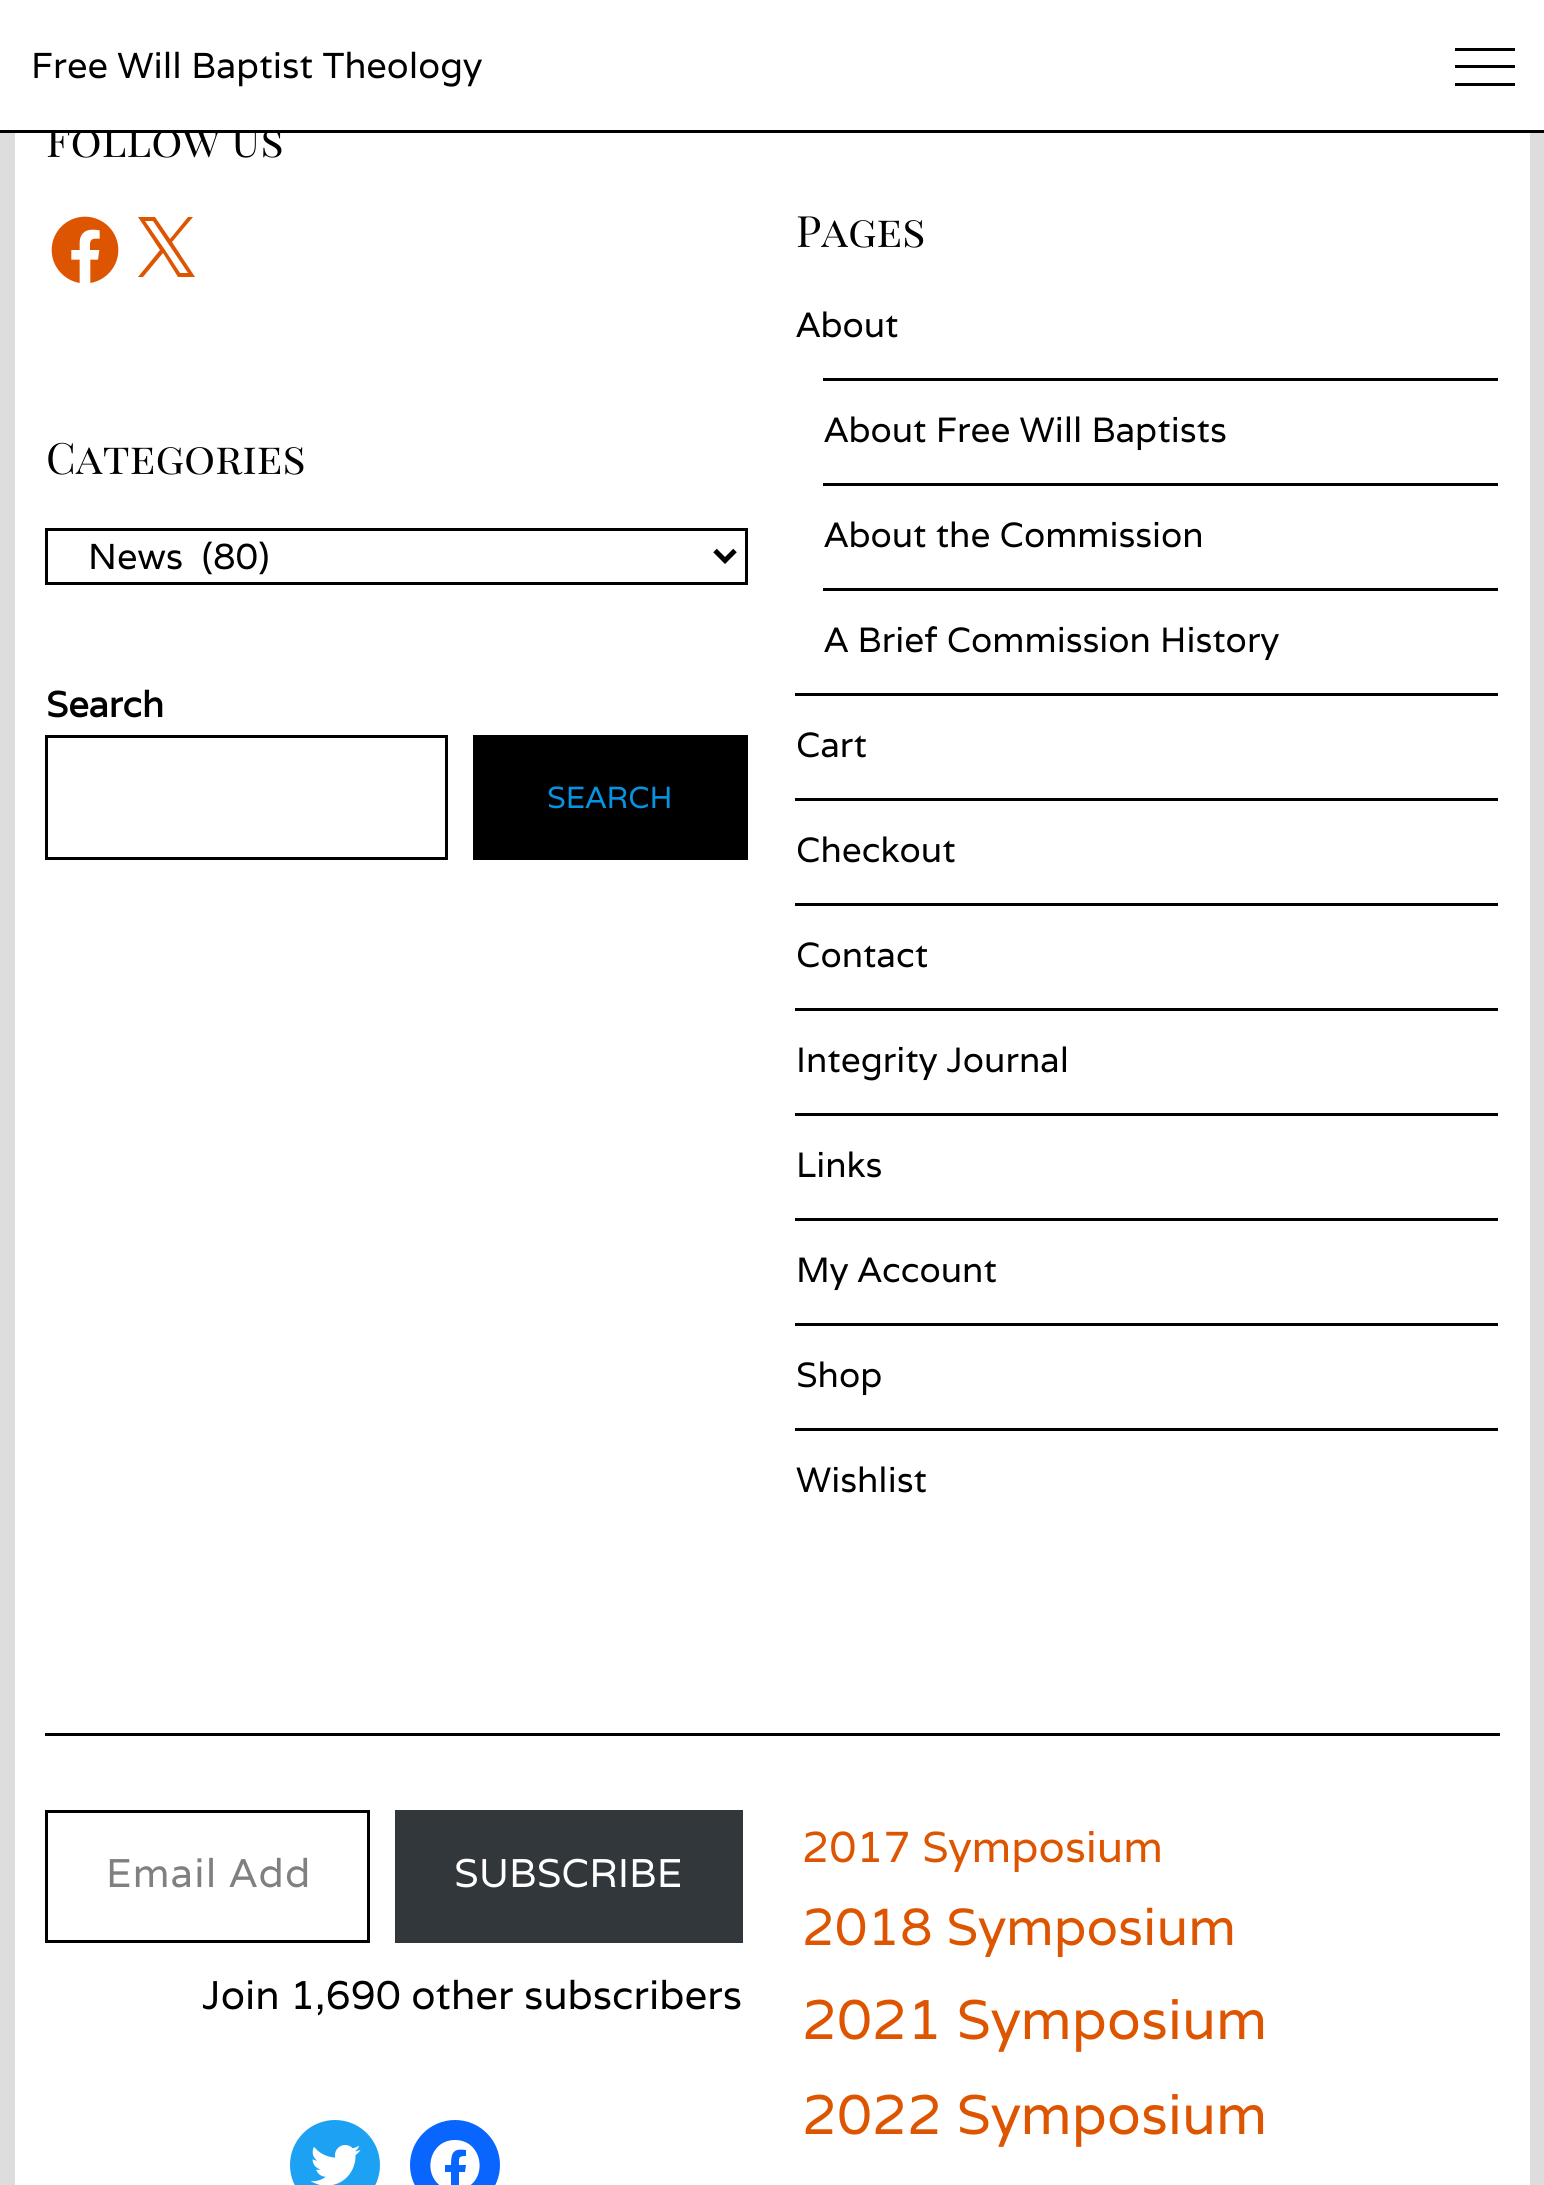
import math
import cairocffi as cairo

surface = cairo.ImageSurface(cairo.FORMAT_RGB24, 1544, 2185)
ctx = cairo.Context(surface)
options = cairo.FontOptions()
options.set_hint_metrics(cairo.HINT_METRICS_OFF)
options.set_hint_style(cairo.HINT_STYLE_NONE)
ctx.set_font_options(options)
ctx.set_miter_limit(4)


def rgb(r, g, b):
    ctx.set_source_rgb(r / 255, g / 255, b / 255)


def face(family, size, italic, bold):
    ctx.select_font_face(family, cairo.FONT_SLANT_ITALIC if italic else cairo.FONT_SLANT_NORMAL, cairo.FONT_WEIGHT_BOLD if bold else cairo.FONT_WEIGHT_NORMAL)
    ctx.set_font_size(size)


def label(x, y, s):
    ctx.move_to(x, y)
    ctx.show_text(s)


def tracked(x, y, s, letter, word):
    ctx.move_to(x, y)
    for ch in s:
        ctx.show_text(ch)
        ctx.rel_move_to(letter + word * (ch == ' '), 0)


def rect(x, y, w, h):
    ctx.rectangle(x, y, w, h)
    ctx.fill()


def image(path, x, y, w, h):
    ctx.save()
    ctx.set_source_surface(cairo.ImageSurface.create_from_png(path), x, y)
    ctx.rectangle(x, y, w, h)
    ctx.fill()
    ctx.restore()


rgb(221, 221, 221)
ctx.paint()
rgb(255, 255, 255)
rect(15, 133, 1515, 2052)
face('Playfair Display SC', 43.25, 0, 0)
rgb(0, 0, 0)
label(46, 157, 'Follow Us')
rgb(255, 255, 255)
rect(0, 0, 1544, 130)
rgb(0, 0, 0)
rect(0, 130, 1544, 3)
face('Varela', 36, 0, 0)
label(31, 78, 'Free Will Baptist Theology')
rect(1455, 48, 60, 3)
rect(1455, 65, 60, 3)
rect(1455, 83, 60, 3)
image('image0.png', 51, 216, 68, 67)
rgb(221, 85, 0)
ctx.new_path()
ctx.move_to(172, 242)
ctx.line_to(193, 217)
ctx.line_to(188, 217)
ctx.line_to(170, 239)
ctx.line_to(155, 217)
ctx.line_to(138, 217)
ctx.line_to(160, 250)
ctx.line_to(138, 277)
ctx.line_to(143, 277)
ctx.line_to(163, 253)
ctx.line_to(178, 277)
ctx.line_to(195, 277)
ctx.close_path()
ctx.move_to(165, 250)
ctx.line_to(145, 221)
ctx.line_to(153, 221)
ctx.line_to(188, 273)
ctx.line_to(180, 273)
ctx.close_path()
ctx.fill()
face('Playfair Display SC', 43.25, 0, 0)
rgb(0, 0, 0)
label(46, 474, 'Categories')
ctx.rectangle(46.5, 529.5, 700, 54)
ctx.set_line_width(3)
ctx.stroke()
ctx.new_path()
ctx.move_to(715, 550.5)
ctx.line_to(725, 560.5)
ctx.line_to(735, 550.5)
ctx.set_line_width(5)
ctx.stroke()
face('Varela', 36, 0, 0)
label(88, 569, 'News  (80)')
face('Playfair Display SC', 43.25, 0, 0)
label(796, 247, 'Pages')
face('Varela', 35, 0, 0)
label(796, 337, 'About')
rect(823, 378, 675, 3)
label(824, 442, 'About Free Will Baptists')
rect(823, 483, 675, 3)
label(824, 547, 'About the Commission')
rect(823, 588, 675, 3)
label(824, 652, 'A Brief Commission History')
rect(795, 693, 703, 3)
label(796, 757, 'Cart')
rect(795, 798, 703, 3)
label(796, 862, 'Checkout')
rect(795, 903, 703, 3)
label(796, 967, 'Contact')
rect(795, 1008, 703, 3)
label(796, 1072, 'Integrity Journal')
rect(795, 1113, 703, 3)
label(796, 1177, 'Links')
rect(795, 1218, 703, 3)
label(796, 1282, 'My Account')
rect(795, 1323, 703, 3)
label(796, 1387, 'Shop')
rect(795, 1428, 703, 3)
label(796, 1492, 'Wishlist')
face('Varela', 36, 0, 1)
label(46, 717, 'Search')
ctx.rectangle(46.5, 736.5, 400, 122)
ctx.set_line_width(3)
ctx.stroke()
rect(473, 735, 275, 125)
face('Varela', 30.5, 0, 0)
rgb(6, 147, 227)
label(547, 808, 'SEARCH')
rgb(0, 0, 0)
rect(45, 1733, 1455, 3)
ctx.rectangle(46.5, 1811.5, 322, 130)
ctx.stroke()
face('Varela', 40, 0, 0)
rgb(128, 128, 128)
tracked(106, 1887, 'Email Add', 1.25, 0)
rgb(50, 55, 60)
rect(395, 1810, 348, 133)
rgb(255, 255, 255)
label(454, 1887, 'SUBSCRIBE')
rgb(0, 0, 0)
label(202, 2009, 'Join 1,690 other subscribers')
rgb(29, 161, 242)
ctx.new_path()
ctx.arc(335, 2165, 45, 0, 2 * math.pi)
ctx.fill()
image('image1.png', 310, 2145, 51, 40)
rgb(8, 102, 255)
ctx.arc(455, 2165, 45, 0, 2 * math.pi)
ctx.fill()
rgb(255, 255, 255)
ctx.new_path()
ctx.move_to(455, 2140)
ctx.curve_to(425, 2140, 421, 2185, 451, 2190)
ctx.line_to(451, 2172)
ctx.line_to(445, 2172)
ctx.line_to(445, 2165)
ctx.line_to(451, 2165)
ctx.curve_to(451, 2153, 453, 2148, 466, 2150)
ctx.line_to(466, 2156)
ctx.curve_to(458, 2156, 459, 2158, 459, 2165)
ctx.line_to(466, 2165)
ctx.line_to(465, 2172)
ctx.line_to(459, 2172)
ctx.line_to(459, 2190)
ctx.curve_to(489, 2185, 485, 2140, 455, 2140)
ctx.close_path()
ctx.fill()
face('Varela', 43.25, 0, 0)
rgb(221, 85, 0)
label(802, 1862, '2017 Symposium')
face('Varela', 52, 0, 0)
label(802, 1945, '2018 Symposium')
face('Varela', 55.75, 0, 0)
label(802, 2039, '2021 Symposium')
label(802, 2134, '2022 Symposium')
surface.write_to_png('render.png')
